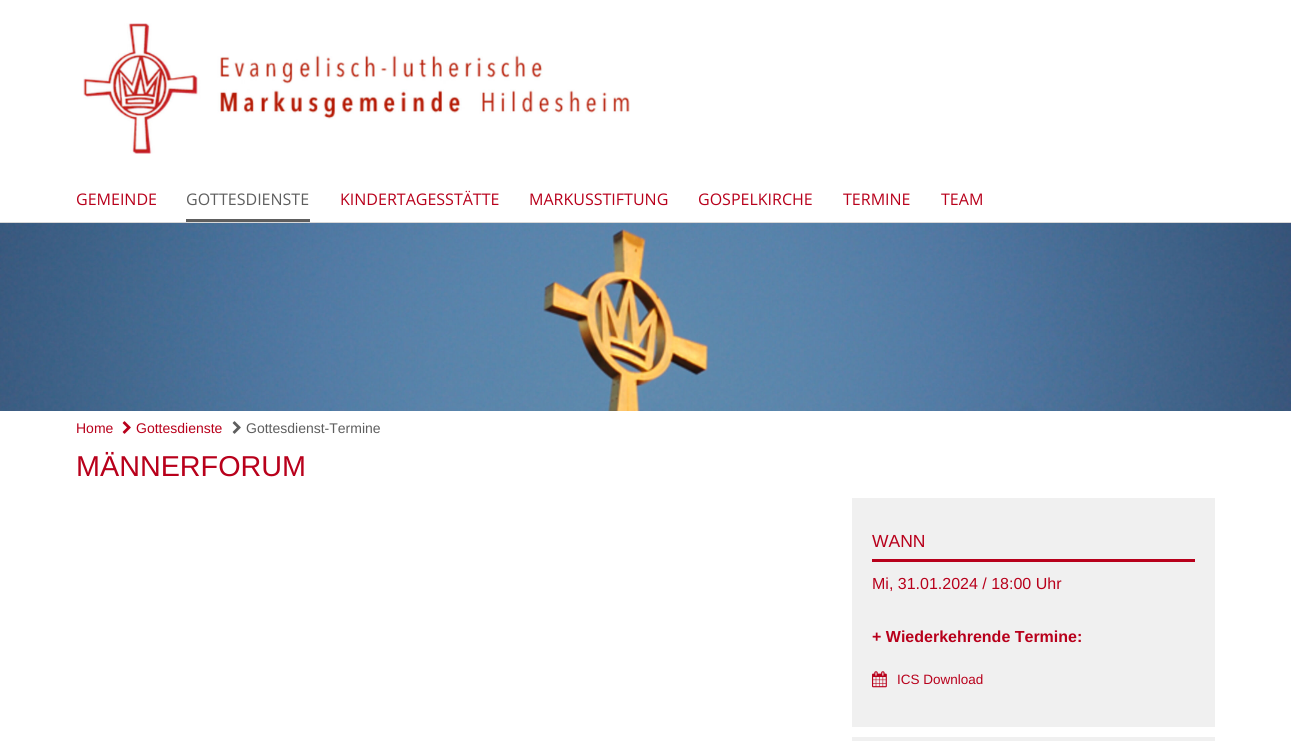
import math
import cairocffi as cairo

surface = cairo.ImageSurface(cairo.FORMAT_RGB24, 1291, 741)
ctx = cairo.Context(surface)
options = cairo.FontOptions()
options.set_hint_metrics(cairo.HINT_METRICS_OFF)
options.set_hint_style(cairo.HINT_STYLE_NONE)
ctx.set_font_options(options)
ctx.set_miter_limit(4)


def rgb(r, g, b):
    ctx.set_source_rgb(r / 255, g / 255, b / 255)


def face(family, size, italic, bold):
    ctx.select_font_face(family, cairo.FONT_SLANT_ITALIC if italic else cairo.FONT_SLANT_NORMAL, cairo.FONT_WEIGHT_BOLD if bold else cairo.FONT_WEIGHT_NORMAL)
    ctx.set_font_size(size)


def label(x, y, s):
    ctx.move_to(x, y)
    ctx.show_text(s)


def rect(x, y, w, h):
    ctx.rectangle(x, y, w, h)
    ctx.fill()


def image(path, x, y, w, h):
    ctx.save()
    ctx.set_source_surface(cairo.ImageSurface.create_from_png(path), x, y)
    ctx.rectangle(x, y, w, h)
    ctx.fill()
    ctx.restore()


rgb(255, 255, 255)
ctx.paint()
rgb(216, 216, 216)
rect(0, 222, 1291, 1)
image('image0.png', 83, 23, 547, 131)
face('Open Sans', 16, 0, 0)
rgb(184, 0, 27)
label(76, 205, 'GEMEINDE')
rgb(94, 94, 94)
rect(186, 219, 124, 3)
label(186, 205, 'GOTTESDIENSTE')
rgb(184, 0, 27)
label(340, 205, 'KINDERTAGESSTÄTTE')
label(529, 205, 'MARKUSSTIFTUNG')
label(698, 205, 'GOSPELKIRCHE')
label(843, 205, 'TERMINE')
label(941, 205, 'TEAM')
image('image1.png', 0, 223, 1291, 188)
face('Liberation Sans', 14, 0, 0)
label(76, 433, 'Home')
image('image2.png', 122, 421, 9, 13)
label(136, 433, 'Gottesdienste')
image('image3.png', 232, 421, 9, 13)
rgb(94, 94, 94)
label(246, 433, 'Gottesdienst-Termine')
face('Liberation Sans', 28.75, 0, 0)
rgb(184, 0, 27)
label(76, 476, 'MÄNNERFORUM')
rgb(240, 240, 240)
rect(852, 498, 363, 229)
rgb(184, 0, 27)
rect(872, 559, 323, 3)
face('Liberation Sans', 17.5, 0, 0)
label(872, 547, 'WANN')
face('Liberation Sans', 16, 0, 0)
label(872, 589, 'Mi, 31.01.2024 / 18:00 Uhr')
face('Liberation Sans', 16, 0, 1)
label(872, 642, '+ Wiederkehrende Termine:')
image('image4.png', 872, 671, 15, 17)
face('Liberation Sans', 13.5, 0, 0)
label(897, 684, 'ICS Download')
rgb(240, 240, 240)
rect(852, 737, 363, 4)
surface.write_to_png('render.png')
